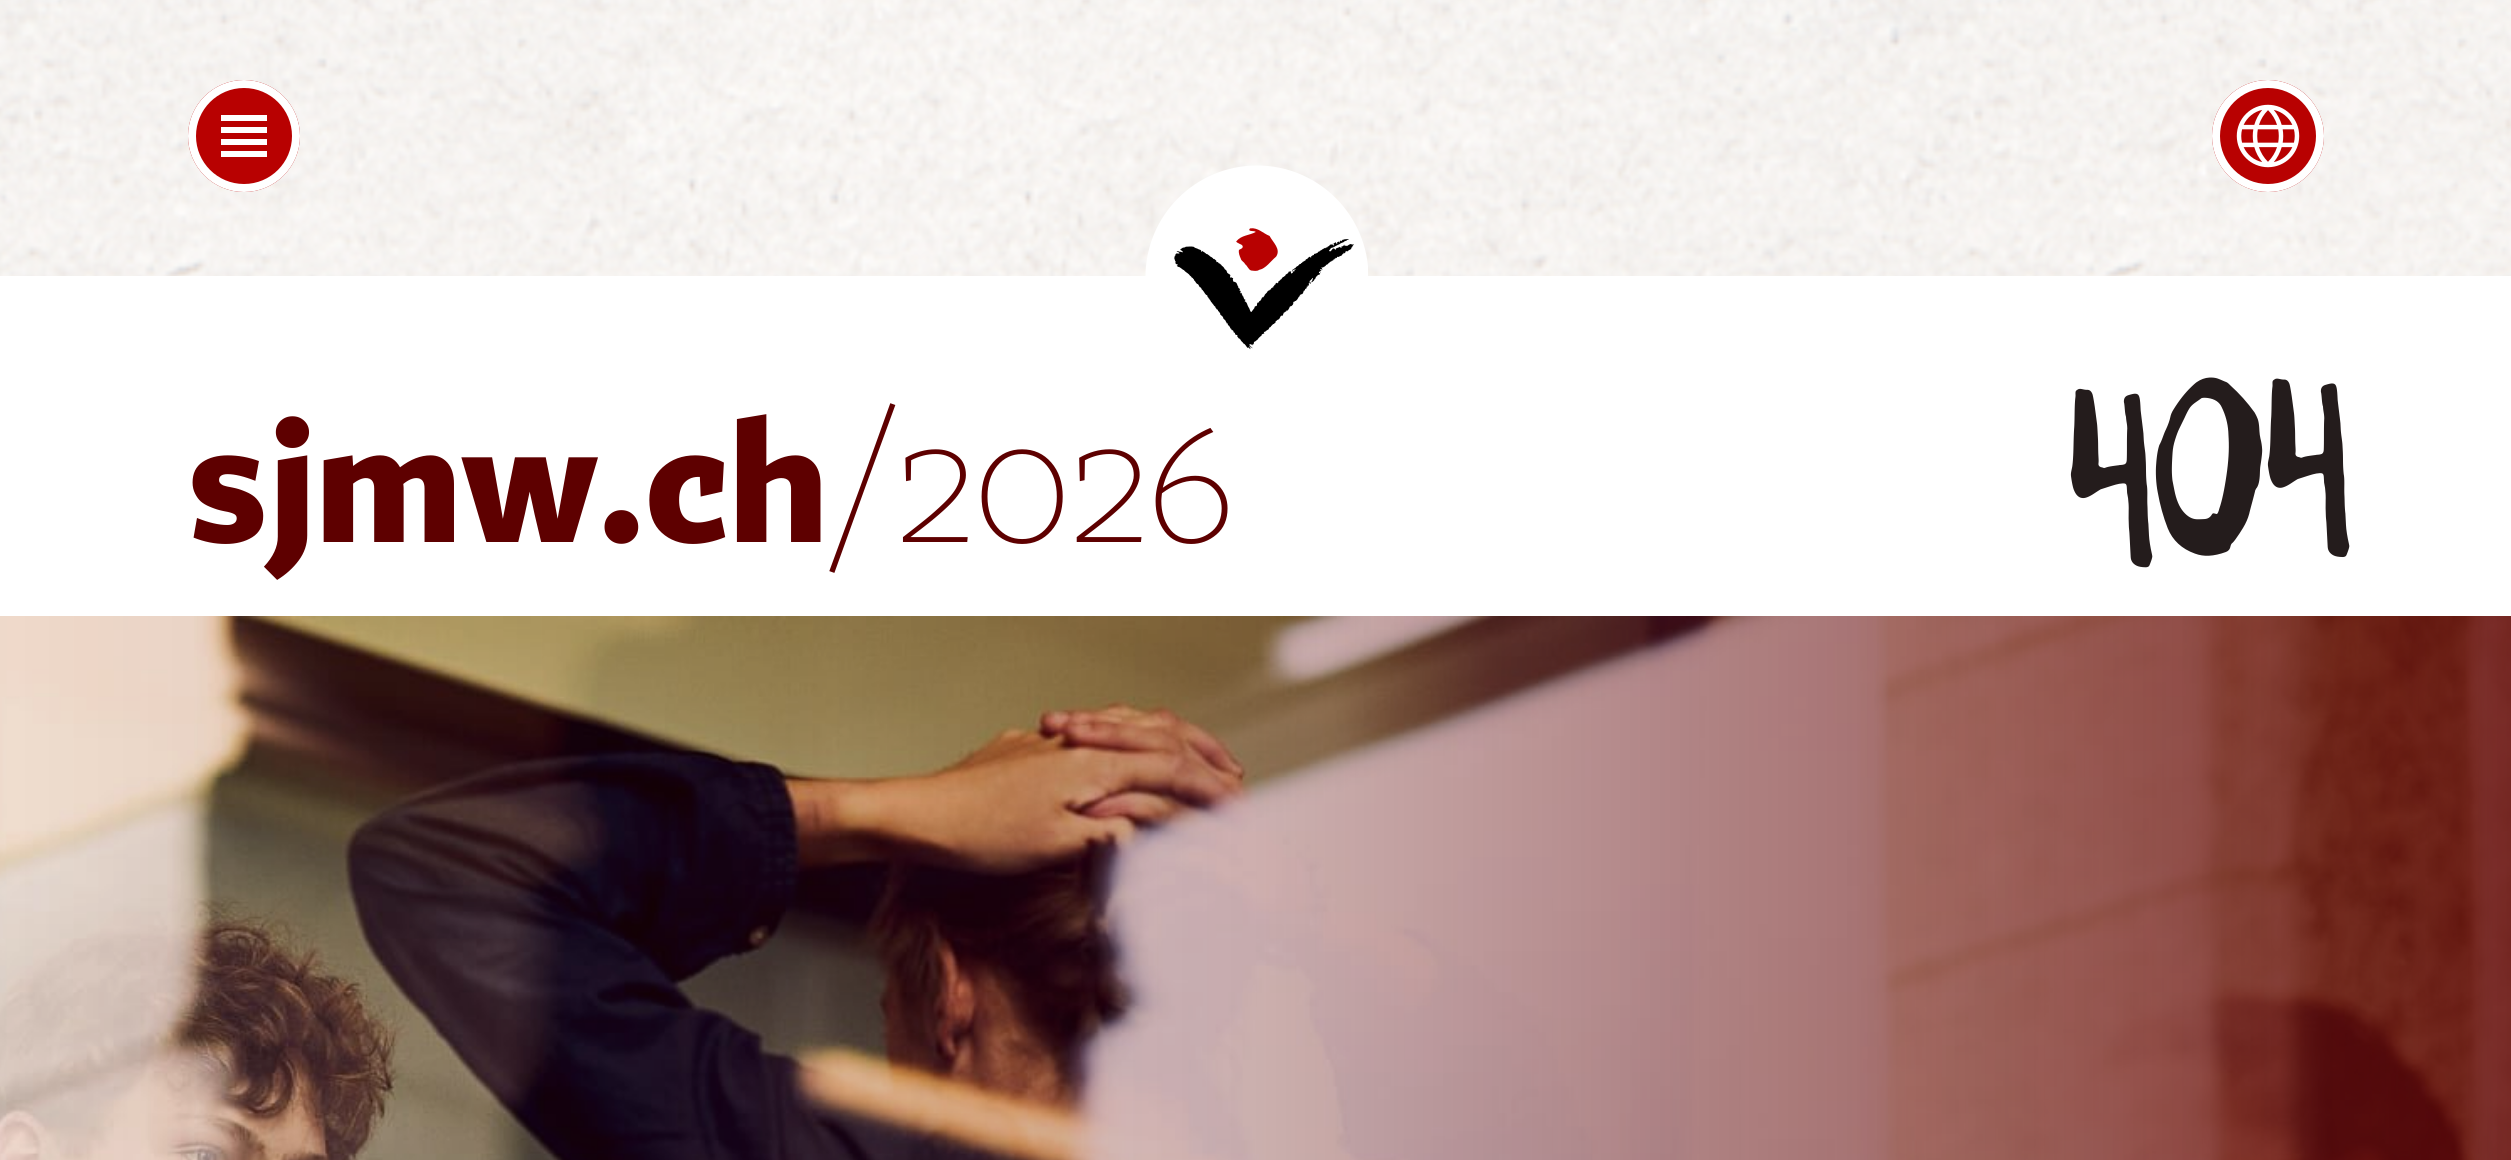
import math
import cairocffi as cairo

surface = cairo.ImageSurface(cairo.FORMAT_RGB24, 2511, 1160)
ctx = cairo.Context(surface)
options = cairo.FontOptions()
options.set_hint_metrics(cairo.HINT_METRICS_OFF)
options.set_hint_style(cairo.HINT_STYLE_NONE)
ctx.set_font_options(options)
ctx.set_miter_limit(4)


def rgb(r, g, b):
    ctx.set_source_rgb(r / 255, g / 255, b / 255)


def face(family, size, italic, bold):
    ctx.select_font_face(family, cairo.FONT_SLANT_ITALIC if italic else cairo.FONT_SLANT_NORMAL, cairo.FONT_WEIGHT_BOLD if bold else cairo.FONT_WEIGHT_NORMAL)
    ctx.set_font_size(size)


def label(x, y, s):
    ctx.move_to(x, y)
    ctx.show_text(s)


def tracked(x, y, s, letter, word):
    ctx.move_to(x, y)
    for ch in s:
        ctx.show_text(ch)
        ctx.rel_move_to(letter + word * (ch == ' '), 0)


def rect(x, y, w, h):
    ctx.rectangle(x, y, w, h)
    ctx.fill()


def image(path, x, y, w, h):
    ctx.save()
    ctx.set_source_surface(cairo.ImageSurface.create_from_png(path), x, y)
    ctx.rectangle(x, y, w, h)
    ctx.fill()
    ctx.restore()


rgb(255, 255, 255)
ctx.paint()
image('image0.png', 0, 0, 2511, 276)
rgb(184, 1, 1)
ctx.arc(244, 136, 56, 0, 2 * math.pi)
ctx.fill()
rgb(255, 255, 255)
rect(221, 151, 46, 6)
rect(221, 115, 46, 6)
rect(221, 139, 46, 6)
rect(221, 127, 46, 6)
ctx.arc(244, 136, 52, 0, 2 * math.pi)
ctx.set_line_width(8)
ctx.stroke()
rgb(184, 1, 1)
ctx.arc(2268, 136, 56, 0, 2 * math.pi)
ctx.fill()
image('image1.png', 2236, 104, 64, 64)
ctx.arc(2268, 136, 52, 0, 2 * math.pi)
rgb(255, 255, 255)
ctx.stroke()
image('image2.png', 1145, 165, 223, 185)
face('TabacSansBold', 163.5, 0, 0)
rgb(94, 0, 0)
label(188, 542, 'sjmw.ch')
face('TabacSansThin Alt', 163.5, 0, 0)
label(828, 542, '/2026')
face('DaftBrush', 226, 0, 0)
rgb(36, 28, 28)
ctx.save()
ctx.translate(2072, 559)
ctx.rotate(-3 * math.pi / 180)
tracked(0, 0, '404', -2, 0)
ctx.restore()
image('image3.png', 0, 616, 2511, 544)
surface.write_to_png('render.png')
